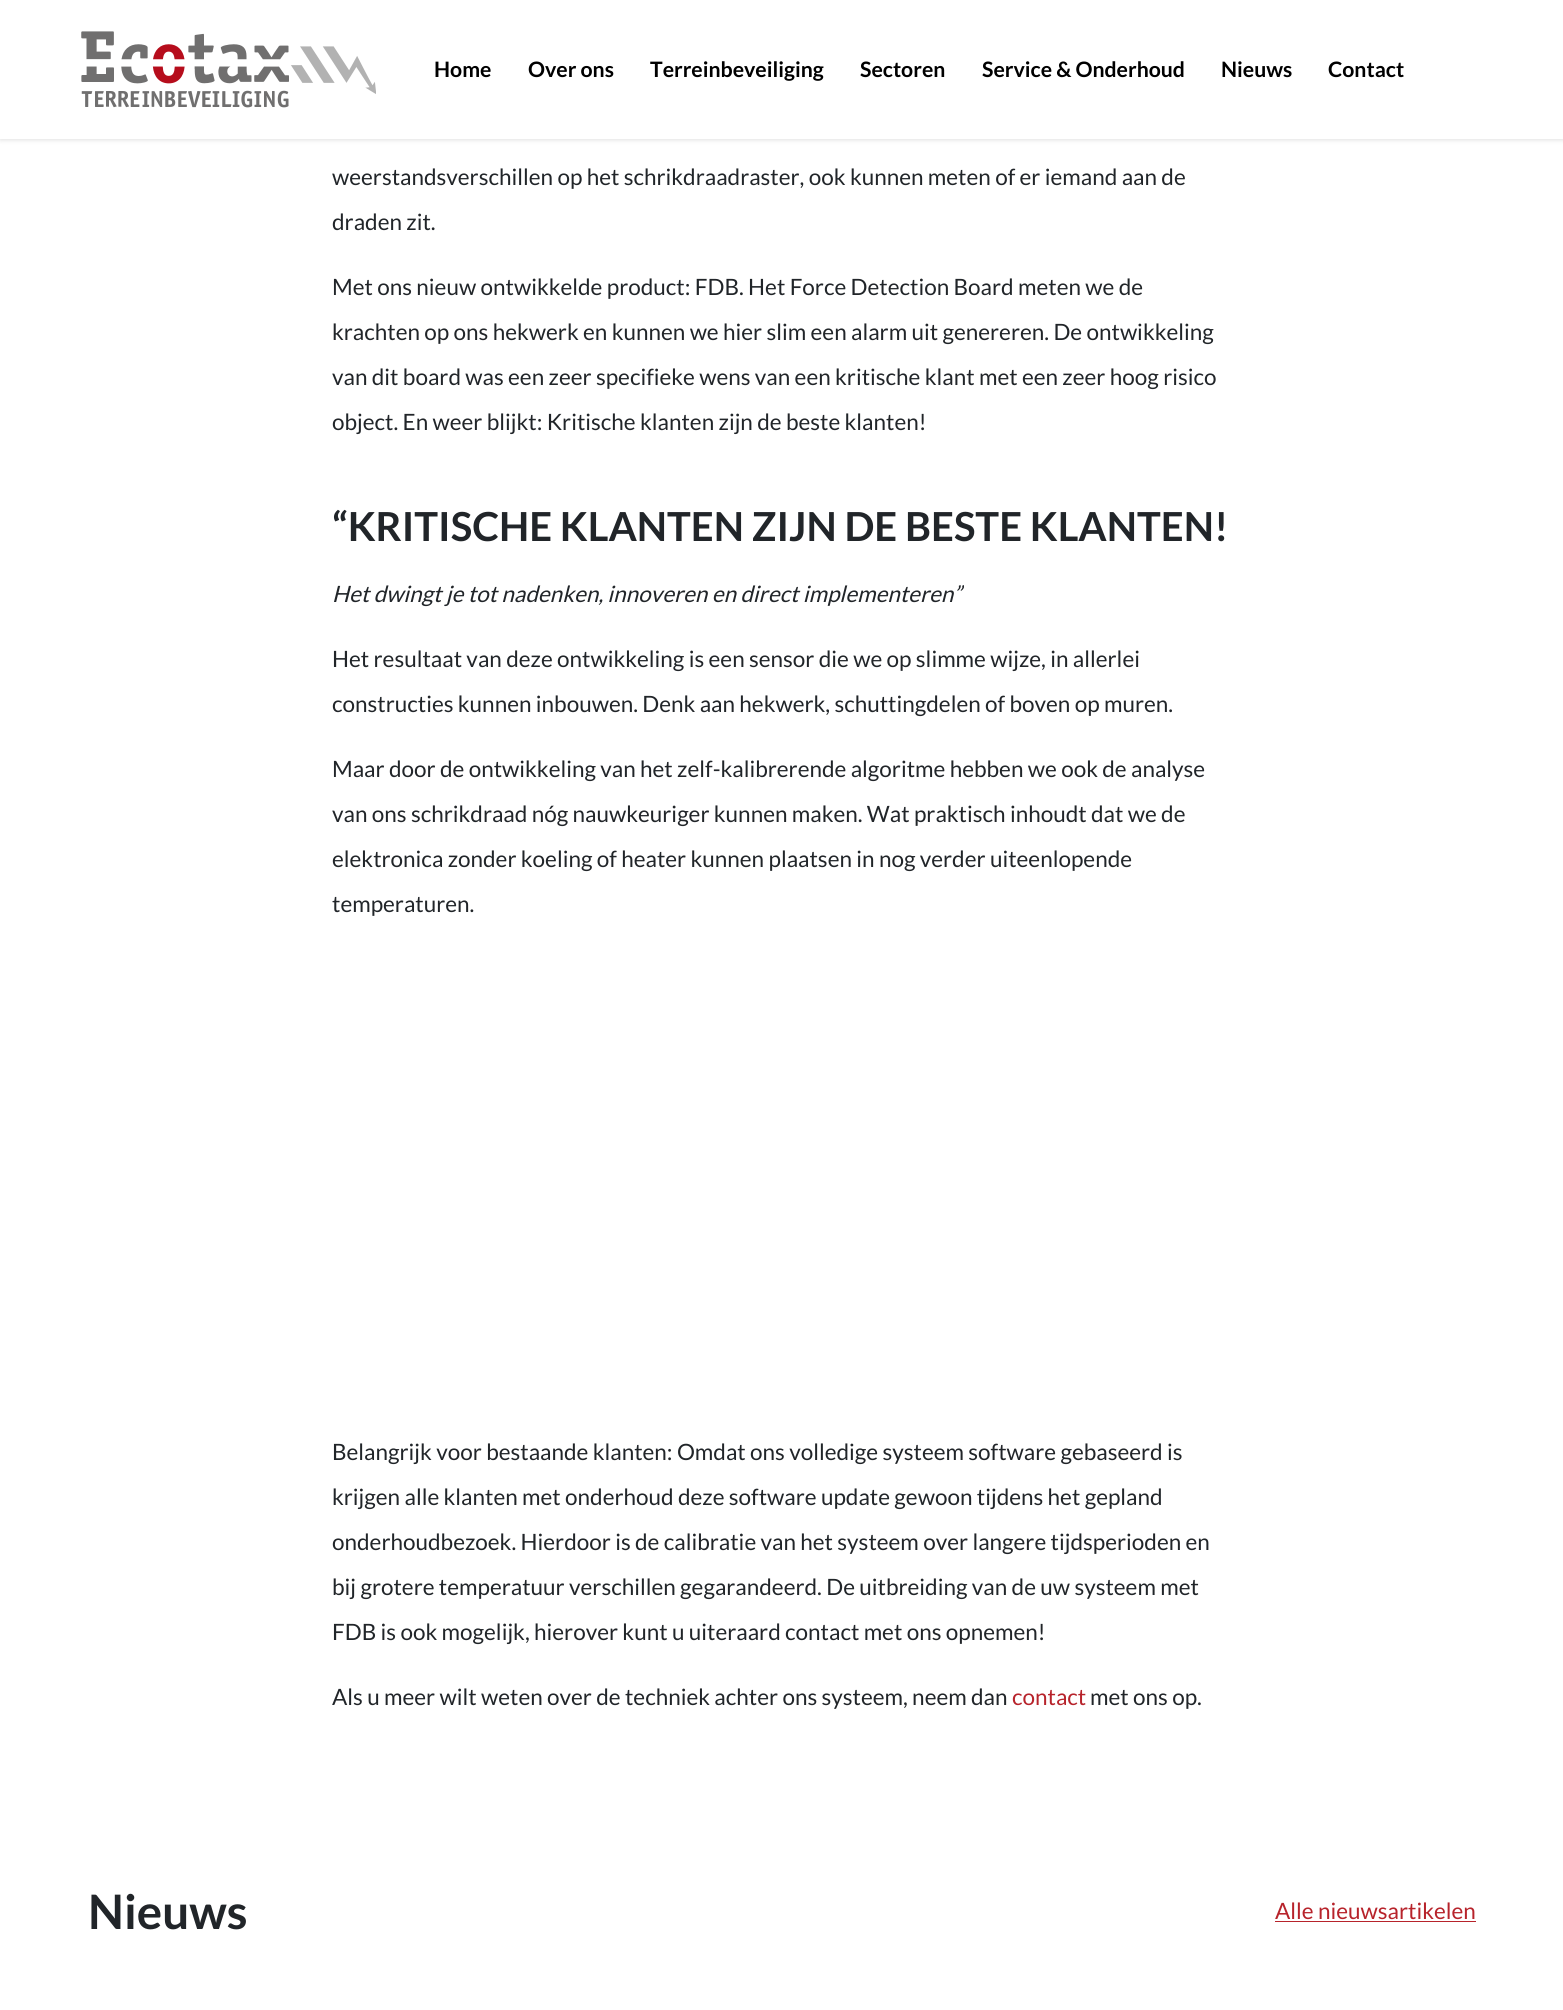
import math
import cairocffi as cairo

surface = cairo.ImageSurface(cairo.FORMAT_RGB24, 1563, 2010)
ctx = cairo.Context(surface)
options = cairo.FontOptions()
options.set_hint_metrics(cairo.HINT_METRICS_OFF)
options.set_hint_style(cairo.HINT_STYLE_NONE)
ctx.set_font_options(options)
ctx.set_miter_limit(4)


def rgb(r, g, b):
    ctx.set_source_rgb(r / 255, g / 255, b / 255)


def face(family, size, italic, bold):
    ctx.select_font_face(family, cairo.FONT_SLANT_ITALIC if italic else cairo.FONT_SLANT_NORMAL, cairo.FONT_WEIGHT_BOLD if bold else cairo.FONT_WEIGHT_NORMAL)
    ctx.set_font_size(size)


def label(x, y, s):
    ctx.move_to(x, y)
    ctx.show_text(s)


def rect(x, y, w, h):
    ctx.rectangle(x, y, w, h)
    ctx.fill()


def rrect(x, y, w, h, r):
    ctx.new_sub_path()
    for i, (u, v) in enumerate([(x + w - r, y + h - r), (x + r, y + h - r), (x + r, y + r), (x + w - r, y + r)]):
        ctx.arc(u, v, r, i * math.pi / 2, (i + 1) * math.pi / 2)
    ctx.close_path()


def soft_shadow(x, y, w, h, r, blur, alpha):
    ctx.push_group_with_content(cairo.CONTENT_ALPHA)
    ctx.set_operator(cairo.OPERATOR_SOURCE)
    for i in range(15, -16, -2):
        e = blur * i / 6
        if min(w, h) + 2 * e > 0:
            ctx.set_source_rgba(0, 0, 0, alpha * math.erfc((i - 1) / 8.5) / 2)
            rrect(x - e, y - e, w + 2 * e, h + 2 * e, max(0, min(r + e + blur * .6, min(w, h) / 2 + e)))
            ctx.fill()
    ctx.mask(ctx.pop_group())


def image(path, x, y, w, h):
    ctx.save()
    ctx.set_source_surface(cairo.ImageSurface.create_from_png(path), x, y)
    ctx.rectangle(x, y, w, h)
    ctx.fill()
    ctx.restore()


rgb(255, 255, 255)
ctx.paint()
rgb(0, 0, 0)
soft_shadow(0, 0, 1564, 139, 0, 3, 0.16)
rgb(255, 255, 255)
rect(0, 0, 1563, 139)
image('image0.png', 81, 31, 295, 77)
face('Lato', 21.25, 0, 1)
rgb(0, 0, 0)
label(434, 77, 'Home')
label(528, 77, 'Over ons')
label(650, 77, 'Terreinbeveiliging')
label(860, 77, 'Sectoren')
label(982, 77, 'Service & Onderhoud')
label(1221, 77, 'Nieuws')
label(1328, 77, 'Contact')
face('Lato', 22.5, 0, 0)
rgb(33, 37, 41)
label(332, 185, 'weerstandsverschillen op het schrikdraadraster, ook kunnen meten of er iemand aan de')
label(332, 230, 'draden zit.')
label(332, 295, 'Met ons nieuw ontwikkelde product: FDB. Het Force Detection Board meten we de')
label(332, 340, 'krachten op ons hekwerk en kunnen we hier slim een alarm uit genereren. De ontwikkeling')
label(332, 385, 'van dit board was een zeer specifieke wens van een kritische klant met een zeer hoog risico')
label(332, 430, 'object. En weer blijkt: Kritische klanten zijn de beste klanten!')
face('Lato', 40, 0, 1)
label(332, 541, '“KRITISCHE KLANTEN ZIJN DE BESTE KLANTEN!')
face('Lato', 22.5, 1, 0)
label(332, 602, 'Het dwingt je tot nadenken, innoveren en direct implementeren”')
face('Lato', 22.5, 0, 0)
label(332, 667, 'Het resultaat van deze ontwikkeling is een sensor die we op slimme wijze, in allerlei')
label(332, 712, 'constructies kunnen inbouwen. Denk aan hekwerk, schuttingdelen of boven op muren.')
label(332, 777, 'Maar door de ontwikkeling van het zelf-kalibrerende algoritme hebben we ook de analyse')
label(332, 822, 'van ons schrikdraad nóg nauwkeuriger kunnen maken. Wat praktisch inhoudt dat we de')
label(332, 867, 'elektronica zonder koeling of heater kunnen plaatsen in nog verder uiteenlopende')
label(332, 912, 'temperaturen.')
label(332, 1460, 'Belangrijk voor bestaande klanten: Omdat ons volledige systeem software gebaseerd is')
label(332, 1505, 'krijgen alle klanten met onderhoud deze software update gewoon tijdens het gepland')
label(332, 1550, 'onderhoudbezoek. Hierdoor is de calibratie van het systeem over langere tijdsperioden en')
label(332, 1595, 'bij grotere temperatuur verschillen gegarandeerd. De uitbreiding van de uw systeem met')
label(332, 1640, 'FDB is ook mogelijk, hierover kunt u uiteraard contact met ons opnemen!')
label(332, 1705, 'Als u meer wilt weten over de techniek achter ons systeem, neem dan')
rgb(183, 35, 43)
label(1012, 1705, 'contact')
rgb(33, 37, 41)
label(1090, 1705, 'met ons op.')
face('Lato', 47.5, 0, 1)
label(88, 1929, 'Nieuws')
face('Lato', 22.5, 0, 0)
rgb(183, 35, 43)
label(1275, 1919, 'Alle nieuwsartikelen')
rect(1275, 1921, 201, 1)
surface.write_to_png('render.png')
